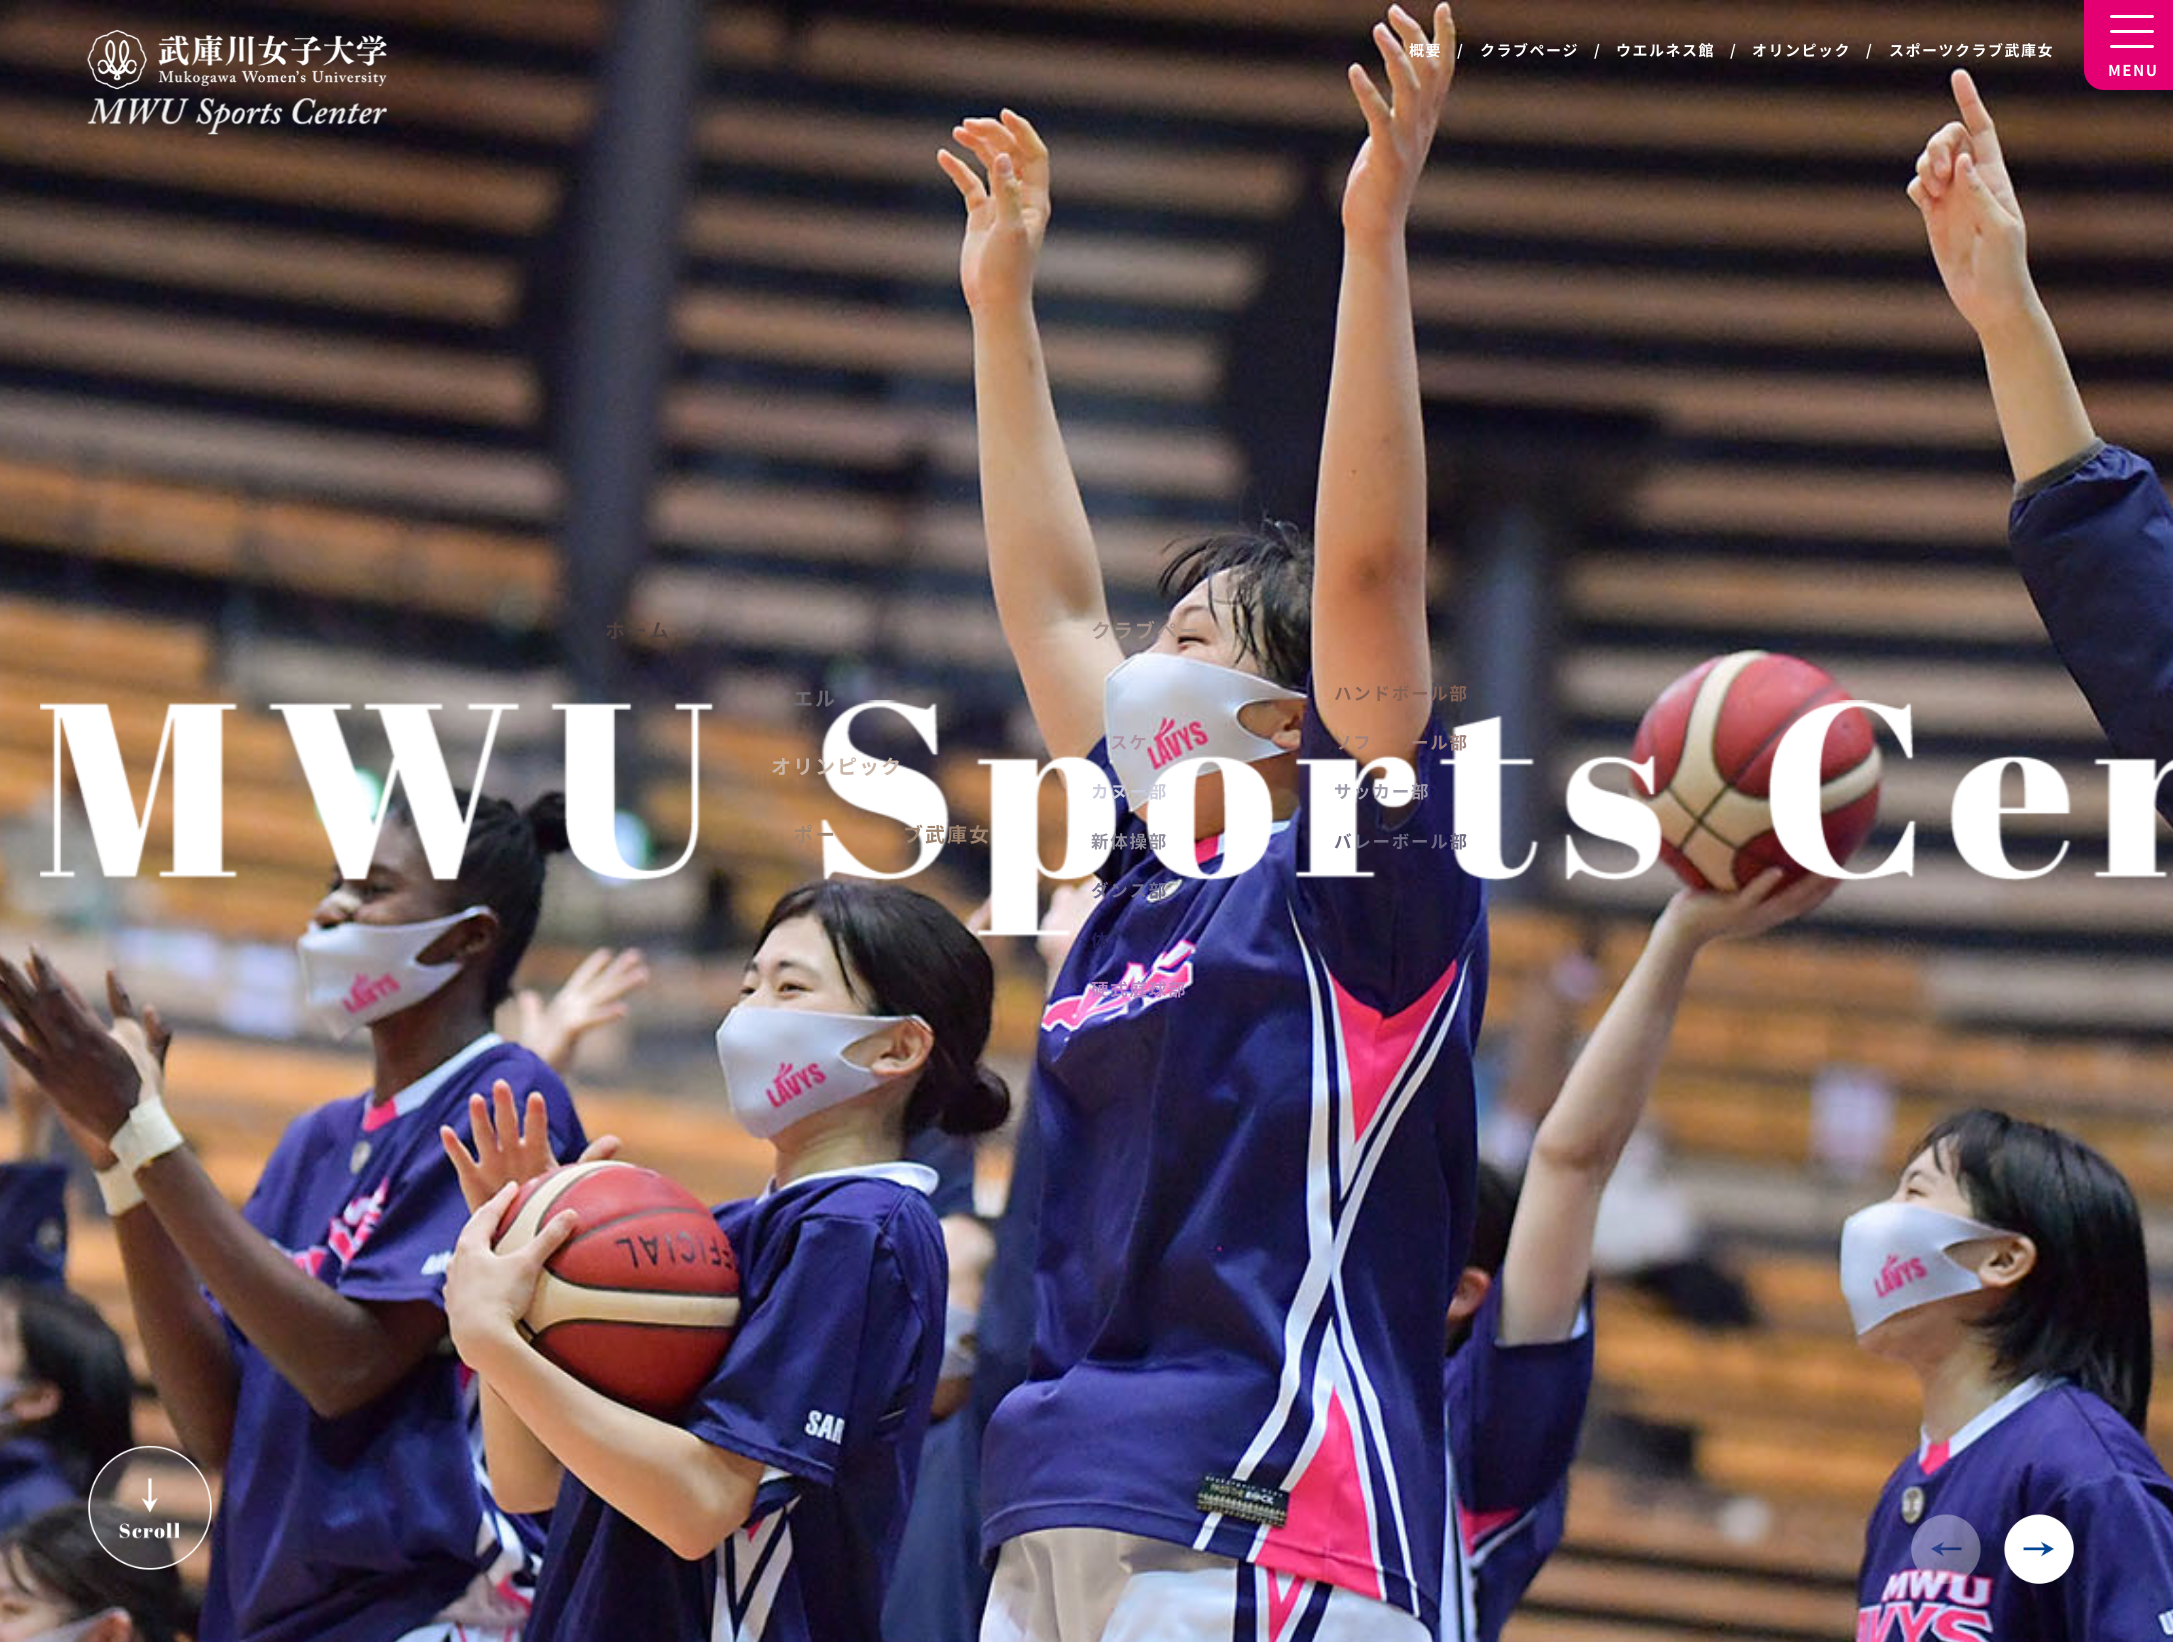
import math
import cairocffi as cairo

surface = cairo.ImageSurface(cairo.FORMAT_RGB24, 2173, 1642)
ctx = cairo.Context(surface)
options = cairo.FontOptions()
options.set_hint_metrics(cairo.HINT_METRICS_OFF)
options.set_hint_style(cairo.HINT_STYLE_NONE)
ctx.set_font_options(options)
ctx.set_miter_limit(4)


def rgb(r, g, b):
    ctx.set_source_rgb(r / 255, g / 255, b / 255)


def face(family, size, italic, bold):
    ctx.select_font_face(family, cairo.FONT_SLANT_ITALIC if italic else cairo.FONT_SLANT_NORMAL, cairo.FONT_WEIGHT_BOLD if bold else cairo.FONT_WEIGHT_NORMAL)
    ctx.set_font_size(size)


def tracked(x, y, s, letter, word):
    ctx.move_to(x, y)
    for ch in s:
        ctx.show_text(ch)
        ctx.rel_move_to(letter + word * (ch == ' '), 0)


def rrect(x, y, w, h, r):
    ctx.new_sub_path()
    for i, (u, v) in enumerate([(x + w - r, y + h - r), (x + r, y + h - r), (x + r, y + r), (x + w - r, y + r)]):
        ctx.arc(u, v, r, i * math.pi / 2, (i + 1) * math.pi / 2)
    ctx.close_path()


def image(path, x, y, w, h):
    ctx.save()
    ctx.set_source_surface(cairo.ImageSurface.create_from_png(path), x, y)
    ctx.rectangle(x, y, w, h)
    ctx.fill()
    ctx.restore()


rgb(255, 255, 255)
ctx.paint()
image('image0.png', 0, 0, 2173, 1642)
image('image1.png', 40, 700, 2133, 237)
image('image2.png', 88, 1445, 124, 125)
image('image3.png', 1911, 1514, 70, 70)
image('image4.png', 2004, 1514, 70, 70)
image('image5.png', 87, 30, 300, 105)
face('Noto Sans JP', 15, 0, 1)
rgb(255, 255, 255)
tracked(1409, 56, '概要', 1.5, 0)
tracked(1457, 56, '/', 1.5, 0)
tracked(1480, 56, 'クラブページ', 1.5, 0)
tracked(1594, 56, '/', 1.5, 0)
tracked(1616, 56, 'ウエルネス館', 1.5, 0)
tracked(1730, 56, '/', 1.5, 0)
tracked(1752, 56, 'オリンピック', 1.5, 0)
tracked(1866, 56, '/', 1.5, 0)
tracked(1889, 56, 'スポーツクラブ武庫女', 1.5, 0)
rgb(228, 0, 115)
ctx.new_path()
ctx.move_to(2084, 0)
ctx.line_to(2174, 0)
ctx.line_to(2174, 90)
ctx.line_to(2104, 90)
ctx.curve_to(2093, 90, 2084, 81, 2084, 70)
ctx.close_path()
ctx.fill()
rgb(255, 255, 255)
rrect(2110, 15, 44, 3, 1.5)
ctx.fill()
rrect(2110, 30, 44, 3, 1.5)
ctx.fill()
rrect(2110, 45, 44, 3, 1.5)
ctx.fill()
tracked(2108, 76, 'MENU', 1.5, 0)
face('Noto Sans JP', 20, 0, 1)
rgb(79, 65, 63)
tracked(605, 638, 'ホーム', 2, 0)
rgb(164, 145, 138)
tracked(1091, 638, 'クラブペー', 2, 0)
face('Noto Sans JP', 17.5, 0, 1)
rgb(174, 146, 161)
tracked(1110, 749, 'スケ', 1.75, 0)
rgb(203, 204, 219)
tracked(1091, 798, 'カヌー部', 1.75, 0)
rgb(144, 142, 157)
tracked(1091, 848, '新体操部', 1.75, 0)
rgb(114, 111, 146)
tracked(1091, 897, 'ダンス部', 1.75, 0)
rgb(36, 33, 90)
tracked(1091, 947, '体', 1.75, 0)
rgb(185, 132, 195)
tracked(1091, 996, '硬式庭球部', 1.75, 0)
rgb(134, 98, 85)
tracked(1334, 700, 'ハンドボール部', 1.75, 0)
rgb(160, 129, 124)
tracked(1334, 749, 'ソフ', 1.75, 0)
tracked(1411, 749, 'ール部', 1.75, 0)
rgb(159, 155, 171)
tracked(1334, 798, 'サッカー部', 1.75, 0)
rgb(111, 107, 131)
tracked(1334, 848, 'バレーボール部', 1.75, 0)
face('Noto Sans JP', 20, 0, 1)
rgb(111, 107, 117)
tracked(793, 706, 'エル', 2, 0)
rgb(201, 182, 168)
tracked(771, 774, 'オリンピック', 2, 0)
rgb(158, 131, 111)
tracked(793, 842, 'ポー', 2, 0)
tracked(903, 842, 'ブ武庫女', 2, 0)
surface.write_to_png('render.png')
